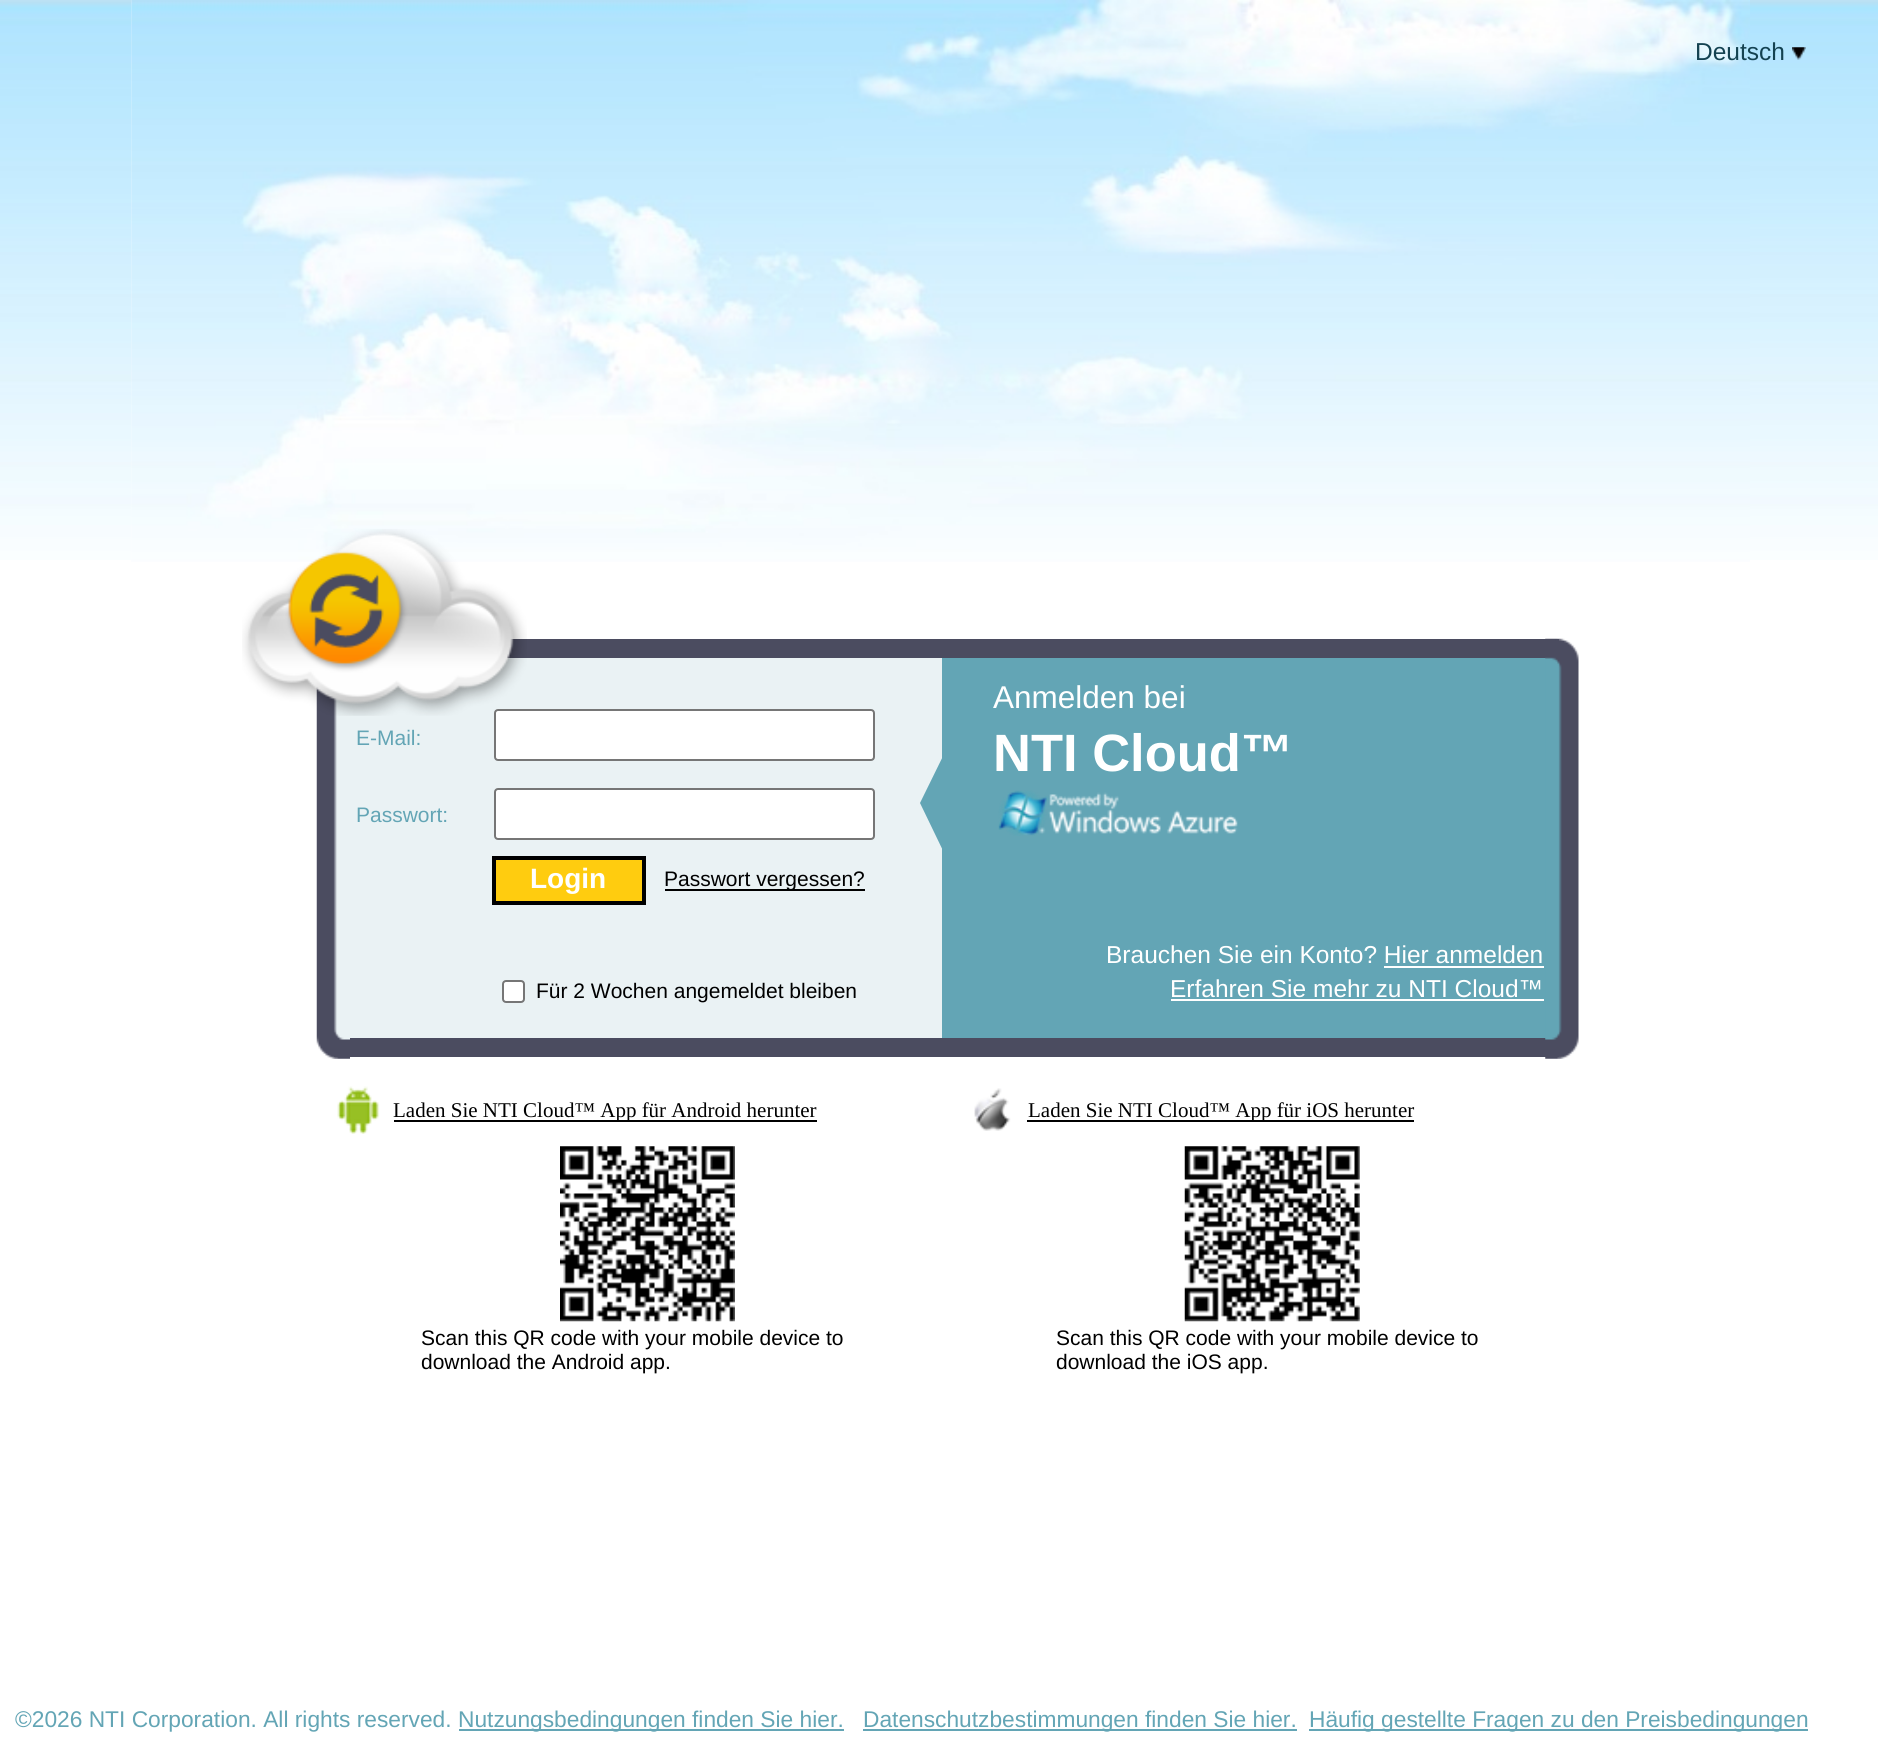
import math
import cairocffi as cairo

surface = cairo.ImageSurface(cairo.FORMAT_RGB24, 1878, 1740)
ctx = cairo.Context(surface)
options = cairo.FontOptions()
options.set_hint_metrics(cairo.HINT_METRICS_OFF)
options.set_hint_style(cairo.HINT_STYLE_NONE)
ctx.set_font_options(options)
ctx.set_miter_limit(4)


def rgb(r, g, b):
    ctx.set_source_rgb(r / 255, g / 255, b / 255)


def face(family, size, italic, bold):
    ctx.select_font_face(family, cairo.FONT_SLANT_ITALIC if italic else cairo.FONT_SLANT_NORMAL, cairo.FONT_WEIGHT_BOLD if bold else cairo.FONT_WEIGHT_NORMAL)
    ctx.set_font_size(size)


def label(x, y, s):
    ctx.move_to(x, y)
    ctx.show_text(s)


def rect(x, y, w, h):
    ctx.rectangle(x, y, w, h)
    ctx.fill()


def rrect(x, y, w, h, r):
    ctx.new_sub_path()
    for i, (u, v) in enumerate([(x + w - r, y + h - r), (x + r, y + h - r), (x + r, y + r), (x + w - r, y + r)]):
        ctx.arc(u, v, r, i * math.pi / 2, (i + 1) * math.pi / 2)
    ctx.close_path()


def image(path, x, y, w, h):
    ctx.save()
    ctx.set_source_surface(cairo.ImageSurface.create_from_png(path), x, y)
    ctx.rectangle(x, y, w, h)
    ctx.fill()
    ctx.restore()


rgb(255, 255, 255)
ctx.paint()
image('image0.png', 0, 0, 132, 560)
image('image1.png', 131, 0, 1619, 562)
image('image2.png', 1750, 0, 128, 560)
face('Liberation Sans', 24.5, 0, 0)
rgb(20, 66, 81)
label(1695, 60, 'Deutsch')
image('image3.png', 1792, 47, 14, 13)
rgb(234, 242, 244)
rect(350, 658, 592, 380)
rgb(75, 76, 96)
rect(505, 639, 1054, 19)
rect(334, 1038, 1225, 19)
image('image5.png', 316, 685, 34, 374)
rgb(255, 255, 255)
rrect(495, 710, 379, 50, 3)
ctx.fill_preserve()
rgb(118, 118, 118)
ctx.stroke()
image('image4.png', 242, 529, 285, 187)
face('Liberation Sans', 21, 0, 0)
rgb(99, 165, 181)
label(356, 745, 'E-Mail:')
label(356, 822, 'Passwort:')
rgb(255, 255, 255)
rrect(495, 789, 379, 50, 3)
ctx.fill_preserve()
rgb(118, 118, 118)
ctx.stroke()
rgb(255, 204, 15)
ctx.rectangle(494, 858, 150, 45)
ctx.fill_preserve()
rgb(0, 0, 0)
ctx.set_line_width(4)
ctx.stroke()
face('Liberation Sans', 28, 0, 1)
rgb(255, 255, 255)
label(530, 888, 'Login')
rgb(0, 0, 0)
rect(665, 889, 200, 2)
face('Liberation Sans', 21, 0, 0)
label(664, 886, 'Passwort vergessen?')
rgb(255, 255, 255)
rrect(503, 981, 21, 21, 3)
ctx.fill_preserve()
rgb(118, 118, 118)
ctx.set_line_width(2)
ctx.stroke()
rgb(0, 0, 0)
label(536, 998, 'Für 2 Wochen angemeldet bleiben')
rgb(99, 165, 181)
rect(942, 658, 604, 380)
ctx.new_path()
ctx.move_to(948, 746)
ctx.line_to(948, 861)
ctx.line_to(920, 803)
ctx.close_path()
ctx.fill()
face('Liberation Sans', 31.5, 0, 0)
rgb(255, 255, 255)
label(993, 708, 'Anmelden bei')
face('Liberation Sans', 52.5, 0, 1)
label(993, 771, 'NTI Cloud™')
image('image6.png', 998, 790, 240, 46)
face('Liberation Sans', 24.5, 0, 0)
label(1106, 963, 'Brauchen Sie ein Konto? Hier anmelden')
rect(1384, 966, 160, 2)
label(1170, 997, 'Erfahren Sie mehr zu NTI Cloud™')
rect(1171, 999, 373, 2)
image('image7.png', 1545, 638, 34, 421)
image('image8.png', 337, 1086, 43, 48)
rgb(0, 0, 0)
rect(394, 1120, 423, 2)
face('Liberation Serif', 21, 0, 0)
label(393, 1117, 'Laden Sie NTI Cloud™ App für Android herunter')
image('image9.png', 974, 1088, 37, 43)
rect(1027, 1120, 387, 2)
label(1028, 1117, 'Laden Sie NTI Cloud™ App für iOS herunter')
image('image10.png', 560, 1146, 175, 176)
face('Liberation Sans', 21, 0, 0)
label(421, 1345, 'Scan this QR code with your mobile device to')
label(421, 1369, 'download the Android app.')
image('image11.png', 1184, 1146, 176, 176)
label(1056, 1345, 'Scan this QR code with your mobile device to')
label(1056, 1369, 'download the iOS app.')
face('Liberation Sans', 22.75, 0, 0)
rgb(99, 165, 181)
label(15, 1727, '©2026 NTI Corporation. All rights reserved.')
rect(459, 1729, 385, 2)
label(458, 1727, 'Nutzungsbedingungen finden Sie hier.')
rect(863, 1729, 434, 2)
label(863, 1727, 'Datenschutzbestimmungen finden Sie hier.')
rect(1309, 1729, 499, 2)
label(1309, 1727, 'Häufig gestellte Fragen zu den Preisbedingungen')
surface.write_to_png('render.png')
